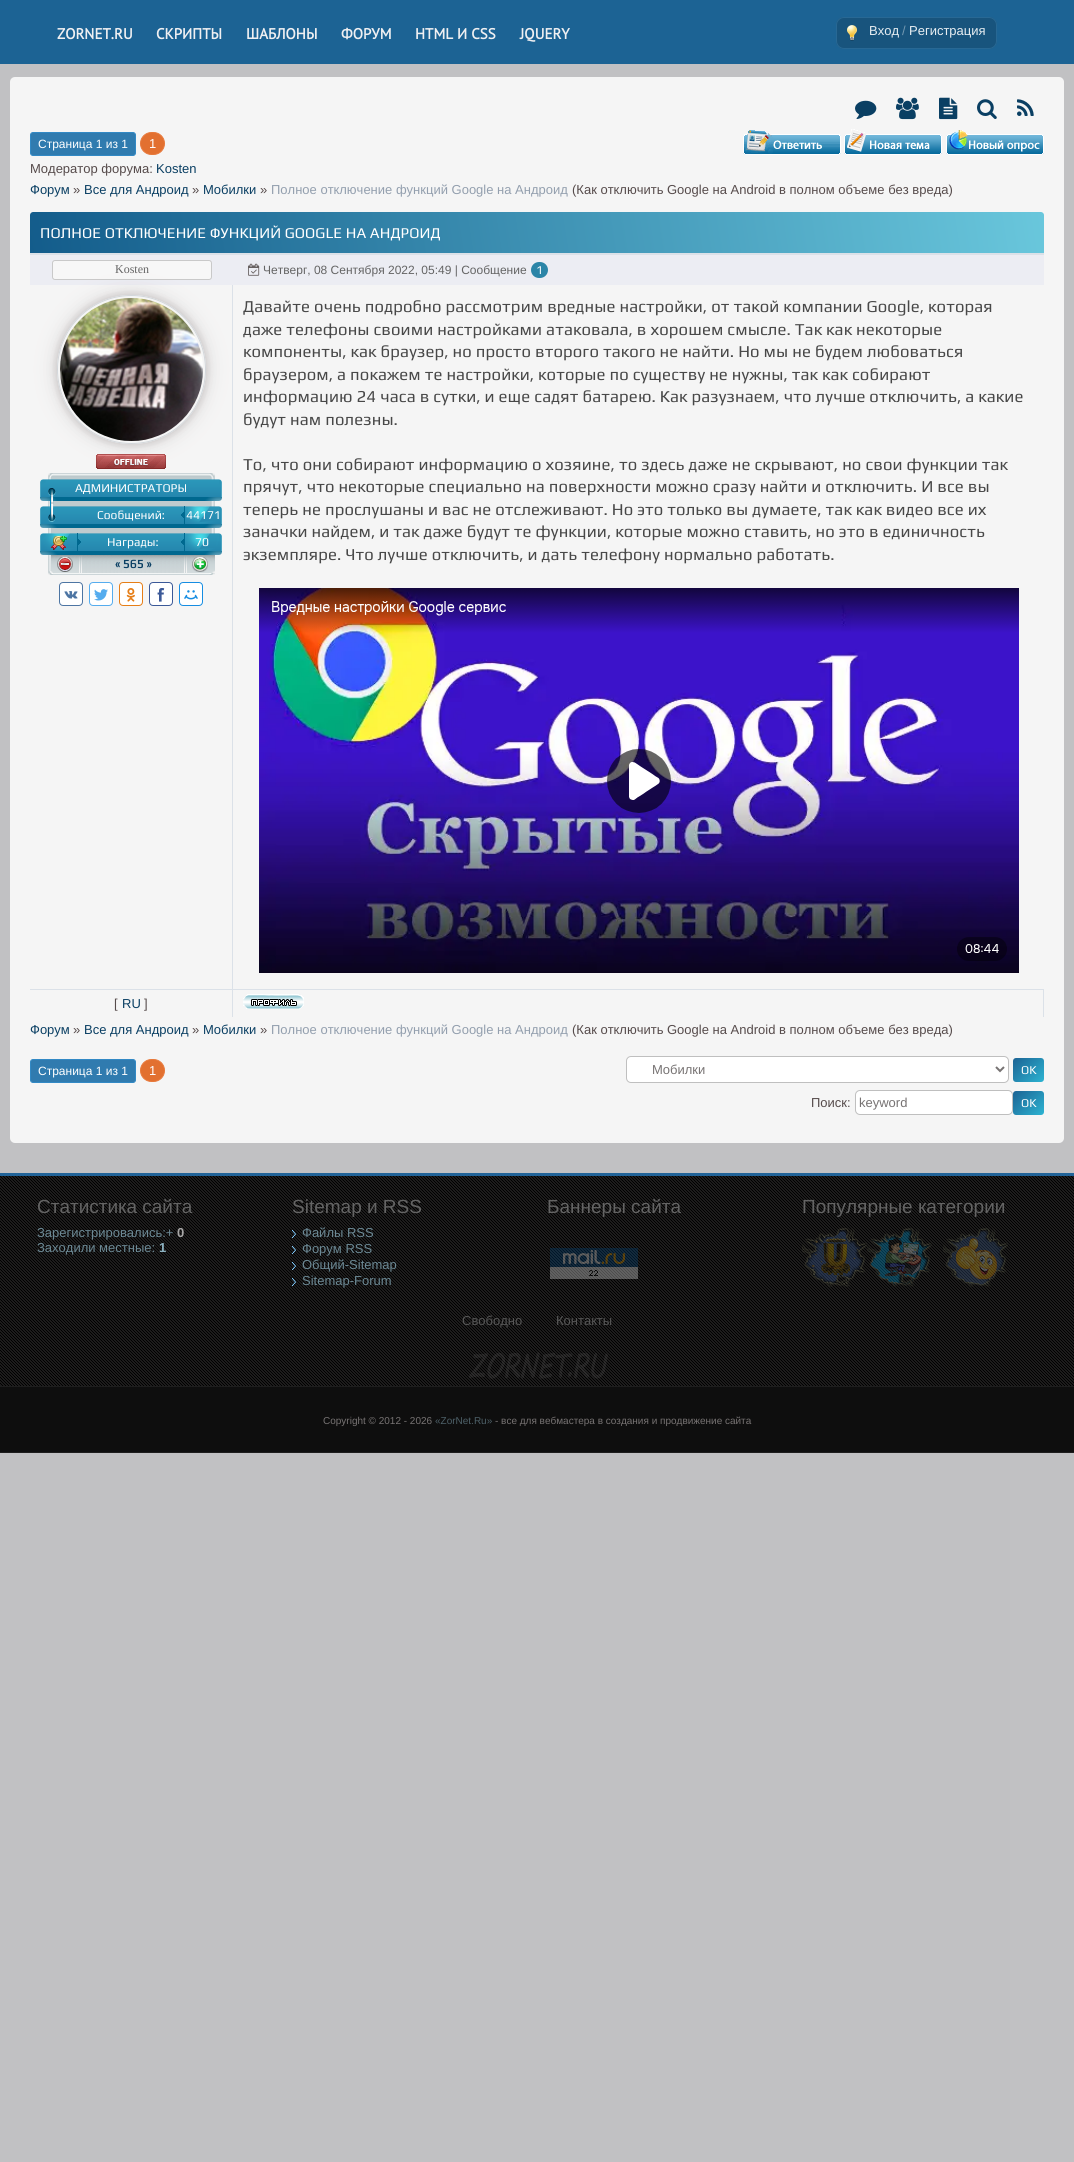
import math
import cairocffi as cairo

surface = cairo.ImageSurface(cairo.FORMAT_RGB24, 1074, 2162)
ctx = cairo.Context(surface)
options = cairo.FontOptions()
options.set_hint_metrics(cairo.HINT_METRICS_OFF)
options.set_hint_style(cairo.HINT_STYLE_NONE)
ctx.set_font_options(options)
ctx.set_miter_limit(4)


def rgb(r, g, b):
    ctx.set_source_rgb(r / 255, g / 255, b / 255)


def face(family, size, italic, bold):
    ctx.select_font_face(family, cairo.FONT_SLANT_ITALIC if italic else cairo.FONT_SLANT_NORMAL, cairo.FONT_WEIGHT_BOLD if bold else cairo.FONT_WEIGHT_NORMAL)
    ctx.set_font_size(size)


def label(x, y, s):
    ctx.move_to(x, y)
    ctx.show_text(s)


def tracked(x, y, s, letter, word):
    ctx.move_to(x, y)
    for ch in s:
        ctx.show_text(ch)
        ctx.rel_move_to(letter + word * (ch == ' '), 0)


def rect(x, y, w, h):
    ctx.rectangle(x, y, w, h)
    ctx.fill()


def rrect(x, y, w, h, r):
    ctx.new_sub_path()
    for i, (u, v) in enumerate([(x + w - r, y + h - r), (x + r, y + h - r), (x + r, y + r), (x + w - r, y + r)]):
        ctx.arc(u, v, r, i * math.pi / 2, (i + 1) * math.pi / 2)
    ctx.close_path()


def soft_shadow(x, y, w, h, r, blur, alpha):
    ctx.push_group_with_content(cairo.CONTENT_ALPHA)
    ctx.set_operator(cairo.OPERATOR_SOURCE)
    for i in range(15, -16, -2):
        e = blur * i / 6
        if min(w, h) + 2 * e > 0:
            ctx.set_source_rgba(0, 0, 0, alpha * math.erfc((i - 1) / 8.5) / 2)
            rrect(x - e, y - e, w + 2 * e, h + 2 * e, max(0, min(r + e + blur * .6, min(w, h) / 2 + e)))
            ctx.fill()
    ctx.mask(ctx.pop_group())


def image(path, x, y, w, h):
    ctx.save()
    ctx.set_source_surface(cairo.ImageSurface.create_from_png(path), x, y)
    ctx.rectangle(x, y, w, h)
    ctx.fill()
    ctx.restore()


rgb(193, 193, 195)
ctx.paint()
rgb(28, 99, 148)
rect(0, 0, 1074, 64)
face('PT Sans', 15, 0, 1)
rgb(240, 240, 242)
label(57, 39, 'ZORNET.RU')
label(156, 39, 'СКРИПТЫ')
label(246, 39, 'ШАБЛОНЫ')
label(341, 39, 'ФОРУМ')
label(415, 39, 'HTML И CSS')
label(520, 39, 'JQUERY')
rgb(24, 84, 125)
rrect(836, 17, 161, 32, 8)
ctx.fill()
image('image0.png', 847, 25, 10, 16)
rrect(836.5, 17.5, 160, 31, 7.5)
rgb(40, 104, 148)
ctx.set_line_width(1)
ctx.stroke()
face('Liberation Sans', 13, 0, 0)
rgb(232, 238, 242)
label(869, 35, 'Вход')
rgb(116, 152, 177)
label(902, 35, '/')
rgb(232, 238, 242)
label(909, 35, 'Регистрация')
rgb(245, 245, 245)
rrect(10, 77, 1054, 1066, 5)
ctx.fill()
image('image1.png', 855, 100, 22, 19)
image('image2.png', 896, 97, 23, 23)
image('image3.png', 939, 97, 19, 23)
image('image4.png', 977, 99, 20, 20)
image('image5.png', 1017, 99, 17, 17)
rgb(48, 123, 175)
rrect(30.5, 132.5, 105, 23, 2.5)
ctx.fill_preserve()
rgb(50, 137, 197)
ctx.stroke()
face('Liberation Sans', 12, 0, 0)
rgb(255, 255, 255)
label(38, 148, 'Страница 1 из 1')
rgb(226, 112, 48)
rrect(140.5, 132.5, 24, 22, 11)
ctx.fill_preserve()
rgb(232, 121, 59)
ctx.stroke()
face('Liberation Sans', 13, 0, 0)
rgb(255, 255, 255)
label(149, 148, '1')
image('image6.png', 743, 130, 98, 25)
image('image7.png', 844, 129, 98, 26)
image('image8.png', 946, 130, 98, 25)
rgb(86, 75, 75)
label(30, 173, 'Модератор форума:')
rgb(10, 63, 99)
label(156, 173, 'Kosten')
label(30, 194, 'Форум')
rgb(86, 75, 75)
label(73, 194, '»')
rgb(10, 63, 99)
label(84, 194, 'Все для Андроид')
rgb(86, 75, 75)
label(192, 194, '»')
rgb(10, 63, 99)
label(203, 194, 'Мобилки')
rgb(86, 75, 75)
label(260, 194, '»')
rgb(147, 159, 174)
label(271, 194, 'Полное отключение функций Google на Андроид')
rgb(86, 75, 75)
label(572, 194, '(Как отключить Google на Android в полном объеме без вреда)')
gradient = cairo.LinearGradient(39, 311, 1035, 154)
gradient.add_color_stop_rgba(0, 0.075, 0.361, 0.545, 1)
gradient.add_color_stop_rgba(1, 0.412, 0.78, 0.863, 1)
ctx.set_source(gradient)
ctx.new_path()
ctx.move_to(33, 212)
ctx.line_to(1041, 212)
ctx.curve_to(1042.5, 212, 1044, 213.5, 1044, 215)
ctx.line_to(1044, 253)
ctx.line_to(30, 253)
ctx.line_to(30, 215)
ctx.curve_to(30, 213.5, 31.5, 212, 33, 212)
ctx.close_path()
ctx.fill()
face('Play', 15, 0, 0)
rgb(255, 255, 255)
tracked(40, 238, 'ПОЛНОЕ ОТКЛЮЧЕНИЕ ФУНКЦИЙ GOOGLE НА АНДРОИД', 0.1, 0)
rgb(219, 225, 232)
rect(30, 253, 1014, 2)
rgb(236, 237, 243)
rect(30, 255, 1014, 30)
rgb(247, 247, 247)
rrect(52.5, 260.5, 159, 19, 2.5)
ctx.fill_preserve()
rgb(201, 201, 201)
ctx.stroke()
face('Liberation Serif', 12, 0, 0)
rgb(100, 100, 100)
label(115, 273, 'Kosten')
image('image9.png', 248, 263, 12, 13)
face('Liberation Sans', 12, 0, 0)
label(263, 274, 'Четверг, 08 Сентября 2022, 05:49 | Сообщение')
rgb(43, 133, 167)
rrect(531, 262, 17, 16, 8)
ctx.fill()
face('Play', 12, 0, 0)
rgb(255, 255, 255)
label(536, 274, '1')
rgb(219, 225, 232)
rect(232, 285, 1, 704)
image('image12.png', 48, 473, 167, 102)
ctx.save()
ctx.set_fill_rule(cairo.FILL_RULE_EVEN_ODD)
ctx.new_path()
ctx.move_to(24, 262)
ctx.line_to(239, 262)
ctx.line_to(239, 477)
ctx.line_to(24, 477)
ctx.close_path()
ctx.move_to(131.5, 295)
ctx.curve_to(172.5, 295, 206, 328.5, 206, 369.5)
ctx.curve_to(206, 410.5, 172.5, 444, 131.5, 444)
ctx.curve_to(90.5, 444, 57, 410.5, 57, 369.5)
ctx.curve_to(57, 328.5, 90.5, 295, 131.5, 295)
ctx.close_path()
ctx.clip()
rgb(136, 127, 127)
soft_shadow(54, 292, 155, 155, 77.5, 9.5, 0.19)
ctx.restore()
ctx.save()
ctx.set_fill_rule(cairo.FILL_RULE_EVEN_ODD)
ctx.new_path()
ctx.move_to(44, 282)
ctx.line_to(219, 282)
ctx.line_to(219, 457)
ctx.line_to(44, 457)
ctx.close_path()
ctx.move_to(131.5, 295)
ctx.curve_to(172.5, 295, 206, 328.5, 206, 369.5)
ctx.curve_to(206, 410.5, 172.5, 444, 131.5, 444)
ctx.curve_to(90.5, 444, 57, 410.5, 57, 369.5)
ctx.curve_to(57, 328.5, 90.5, 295, 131.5, 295)
ctx.close_path()
ctx.clip()
rgb(158, 150, 150)
soft_shadow(54, 292, 155, 155, 77.5, 3, 0.27)
ctx.restore()
ctx.arc(131.5, 369.5, 74, 0, 2 * math.pi)
rgb(210, 214, 218)
ctx.stroke()
image('image10.png', 60, 298, 143, 143)
image('image11.png', 96, 454, 70, 15)
image('image13.png', 40, 479, 182, 22)
image('image15.png', 40, 506, 182, 22)
image('image14.png', 48, 488, 8, 34)
rgb(255, 255, 255)
label(75, 492, 'АДМИНИСТРАТОРЫ')
label(97, 519, 'Сообщений:')
label(186, 519, '44171')
image('image16.png', 40, 533, 182, 22)
image('image17.png', 51, 536, 16, 14)
label(107, 546, 'Награды:')
label(195, 546, '70')
image('image18.png', 51, 555, 164, 18)
image('image19.png', 57, 557, 16, 15)
face('Play', 12, 0, 1)
rgb(10, 63, 99)
label(115, 568, '« 565 »')
image('image20.png', 192, 557, 16, 15)
rgb(255, 255, 255)
rrect(59.5, 582.5, 23, 23, 3.5)
ctx.fill_preserve()
rgb(77, 117, 163)
ctx.stroke()
image('image21.png', 64, 591, 14, 8)
rgb(255, 255, 255)
rrect(89.5, 582.5, 23, 23, 3.5)
ctx.fill_preserve()
rgb(85, 172, 238)
ctx.stroke()
image('image22.png', 94, 589, 14, 12)
rgb(255, 255, 255)
rrect(119.5, 582.5, 23, 23, 3.5)
ctx.fill_preserve()
rgb(230, 126, 23)
ctx.stroke()
image('image23.png', 126, 588, 9, 14)
rgb(255, 255, 255)
rrect(149.5, 582.5, 23, 23, 3.5)
ctx.fill_preserve()
rgb(59, 89, 152)
ctx.stroke()
image('image24.png', 157, 588, 8, 14)
rgb(255, 255, 255)
rrect(179.5, 582.5, 23, 23, 3.5)
ctx.fill_preserve()
rgb(22, 141, 226)
ctx.stroke()
image('image25.png', 184, 590, 14, 10)
face('Play', 16.7, 0, 0)
rgb(72, 72, 72)
tracked(243, 312, 'Давайте очень подробно рассмотрим вредные настройки, от такой компании Google, которая', 0.1, 0)
tracked(243, 335, 'даже телефоны своими настройками атаковала, в хорошем смысле. Так как некоторые', 0.1, 0)
tracked(243, 357, 'компоненты, как браузер, но просто второго такого не найти. Но мы не будем любоваться', 0.1, 0)
tracked(243, 380, 'браузером, а покажем те настройки, которые по существу не нужны, так как собирают', 0.1, 0)
tracked(243, 402, 'информацию 24 часа в сутки, и еще садят батарею. Как разузнаем, что лучше отключить, а какие', 0.1, 0)
tracked(243, 425, 'будут нам полезны.', 0.1, 0)
tracked(243, 470, 'То, что они собирают информацию о хозяине, то здесь даже не скрывают, но свои функции так', 0.1, 0)
tracked(243, 492, 'прячут, что некоторые специально на поверхности можно сразу найти и отключить. И все вы', 0.1, 0)
tracked(243, 515, 'теперь не прослушаны и вас не отслеживают. Но это только вы думаете, так как видео все их', 0.1, 0)
tracked(243, 537, 'заначки найдем, и так даже будут те функции, которые можно ставить, но это в единичность', 0.1, 0)
tracked(243, 560, 'экземпляре. Что лучше отключить, и дать телефону нормально работать.', 0.1, 0)
image('image26.png', 259, 588, 760, 385)
rgb(219, 225, 232)
rect(30, 989, 1014, 1)
rect(232, 989, 1, 28)
face('Liberation Sans', 13, 0, 0)
rgb(86, 75, 75)
label(114, 1008, '[')
rgb(10, 63, 99)
label(122, 1008, 'RU')
rgb(86, 75, 75)
label(144, 1008, ']')
rgb(219, 225, 232)
rect(1043, 989, 1, 28)
image('image27.png', 243, 994, 61, 15)
rgb(10, 63, 99)
label(30, 1034, 'Форум')
rgb(86, 75, 75)
label(73, 1034, '»')
rgb(10, 63, 99)
label(84, 1034, 'Все для Андроид')
rgb(86, 75, 75)
label(192, 1034, '»')
rgb(10, 63, 99)
label(203, 1034, 'Мобилки')
rgb(86, 75, 75)
label(260, 1034, '»')
rgb(147, 159, 174)
label(271, 1034, 'Полное отключение функций Google на Андроид')
rgb(86, 75, 75)
label(572, 1034, '(Как отключить Google на Android в полном объеме без вреда)')
rgb(48, 123, 175)
rrect(30.5, 1059.5, 105, 23, 2.5)
ctx.fill_preserve()
rgb(50, 137, 197)
ctx.stroke()
face('Liberation Sans', 12, 0, 0)
rgb(255, 255, 255)
label(38, 1075, 'Страница 1 из 1')
rgb(226, 112, 48)
rrect(140.5, 1059.5, 24, 22, 11)
ctx.fill_preserve()
rgb(232, 121, 59)
ctx.stroke()
face('Liberation Sans', 13, 0, 0)
rgb(255, 255, 255)
label(149, 1075, '1')
rrect(626.5, 1056.5, 382, 26, 4.5)
ctx.fill_preserve()
rgb(191, 191, 191)
ctx.stroke()
ctx.new_path()
ctx.move_to(996, 1067)
ctx.line_to(1000, 1071)
ctx.line_to(1004, 1067)
rgb(119, 115, 115)
ctx.set_line_width(2)
ctx.stroke()
label(652, 1074, 'Мобилки')
gradient = cairo.LinearGradient(1015, 1056, 1042, 1084)
gradient.add_color_stop_rgba(0, 0.11, 0.388, 0.58, 1)
gradient.add_color_stop_rgba(1, 0.173, 0.706, 0.824, 1)
ctx.set_source(gradient)
rrect(1013, 1058, 31, 24, 3)
ctx.fill()
face('Play', 12, 0, 0)
rgb(255, 255, 255)
label(1021, 1074, 'OK')
face('Liberation Sans', 13, 0, 0)
rgb(86, 75, 75)
label(811, 1107, 'Поиск:')
rgb(255, 255, 255)
rrect(855.5, 1090.5, 157, 24, 4.5)
ctx.fill_preserve()
rgb(191, 191, 191)
ctx.set_line_width(1)
ctx.stroke()
rgb(119, 115, 115)
label(859, 1107, 'keyword')
gradient = cairo.LinearGradient(1015, 1089, 1042, 1117)
gradient.add_color_stop_rgba(0, 0.11, 0.388, 0.58, 1)
gradient.add_color_stop_rgba(1, 0.173, 0.706, 0.824, 1)
ctx.set_source(gradient)
rrect(1013, 1091, 31, 24, 3)
ctx.fill()
face('Play', 12, 0, 0)
rgb(255, 255, 255)
label(1021, 1107, 'OK')
rgb(29, 28, 28)
rect(0, 1176, 1074, 210)
image('image28.png', 0, 1176, 1074, 210)
rgb(33, 99, 152)
rect(0, 1173, 1074, 3)
face('Liberation Sans', 19, 0, 0)
rgb(100, 100, 100)
label(37, 1213, 'Статистика сайта')
face('Liberation Sans', 13, 0, 0)
rgb(108, 137, 149)
label(37, 1237, 'Зарегистрировались:+')
face('Liberation Sans', 13, 0, 1)
rgb(168, 167, 167)
label(177, 1237, '0')
face('Liberation Sans', 13, 0, 0)
rgb(108, 137, 149)
label(37, 1252, 'Заходили местные:')
face('Liberation Sans', 13, 0, 1)
rgb(140, 178, 193)
label(159, 1252, '1')
face('Liberation Sans', 19, 0, 0)
rgb(100, 100, 100)
label(292, 1213, 'Sitemap и RSS')
image('image29.png', 292, 1230, 4, 8)
face('Liberation Sans', 13, 0, 0)
rgb(108, 137, 149)
label(302, 1237, 'Файлы RSS')
image('image30.png', 292, 1246, 4, 8)
label(302, 1253, 'Форум RSS')
image('image31.png', 292, 1262, 4, 8)
label(302, 1269, 'Общий-Sitemap')
image('image29.png', 292, 1278, 4, 8)
label(302, 1285, 'Sitemap-Forum')
face('Liberation Sans', 19, 0, 0)
rgb(100, 100, 100)
label(547, 1213, 'Баннеры сайта')
image('image32.png', 550, 1248, 88, 31)
label(802, 1213, 'Популярные категории')
image('image33.png', 802, 1228, 65, 59)
image('image34.png', 867, 1228, 65, 59)
image('image35.png', 943, 1228, 65, 59)
face('Liberation Sans', 13, 0, 0)
rgb(87, 87, 87)
label(462, 1325, 'Свободно')
label(556, 1325, 'Контакты')
image('image36.png', 469, 1352, 139, 27)
rgb(14, 14, 14)
rect(0, 1387, 1074, 65)
rgb(30, 30, 30)
rect(0, 1386, 1074, 1)
rect(0, 1452, 1074, 1)
face('Liberation Sans', 10, 0, 0)
rgb(119, 115, 115)
label(323, 1424, 'Copyright © 2012 - 2026')
rgb(77, 96, 104)
label(435, 1424, '«ZorNet.Ru»')
rgb(119, 115, 115)
label(495, 1424, '- все для вебмастера в создания и продвижение сайта')
surface.write_to_png('render.png')
